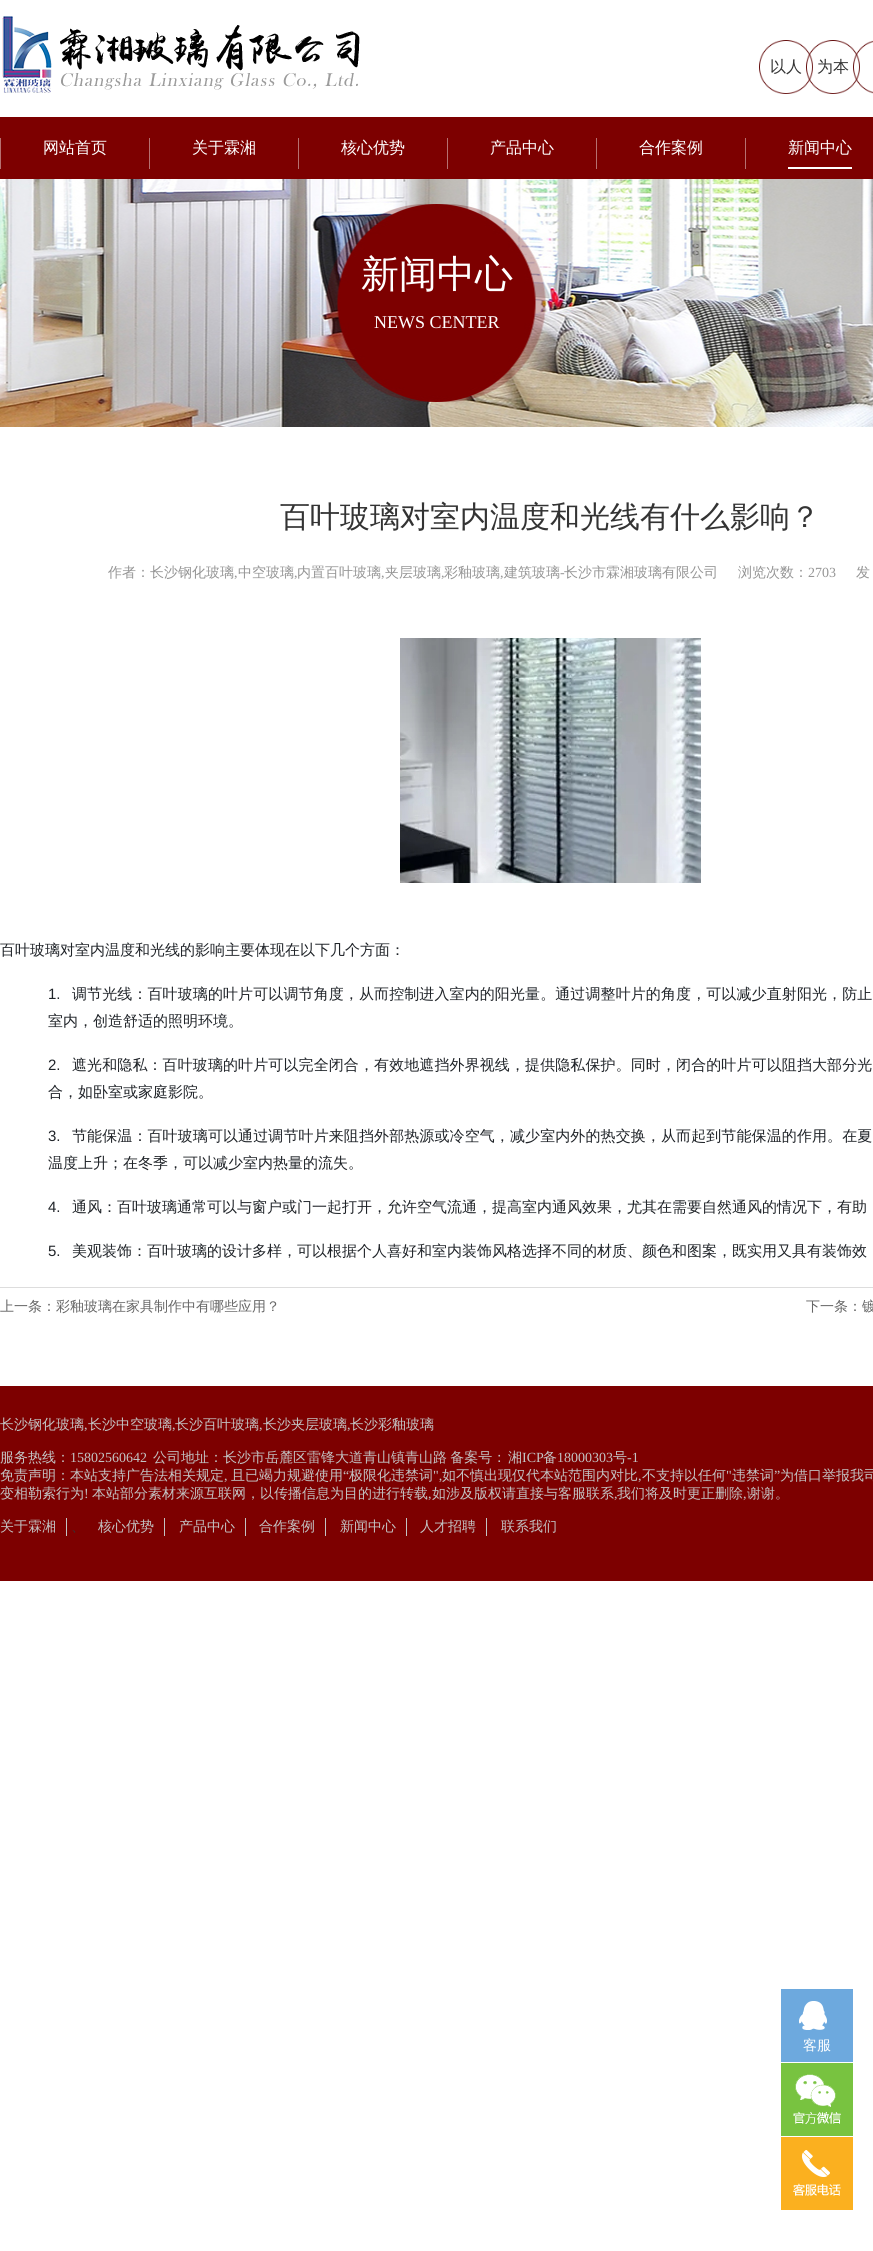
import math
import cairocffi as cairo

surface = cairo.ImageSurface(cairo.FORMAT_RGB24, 873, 2251)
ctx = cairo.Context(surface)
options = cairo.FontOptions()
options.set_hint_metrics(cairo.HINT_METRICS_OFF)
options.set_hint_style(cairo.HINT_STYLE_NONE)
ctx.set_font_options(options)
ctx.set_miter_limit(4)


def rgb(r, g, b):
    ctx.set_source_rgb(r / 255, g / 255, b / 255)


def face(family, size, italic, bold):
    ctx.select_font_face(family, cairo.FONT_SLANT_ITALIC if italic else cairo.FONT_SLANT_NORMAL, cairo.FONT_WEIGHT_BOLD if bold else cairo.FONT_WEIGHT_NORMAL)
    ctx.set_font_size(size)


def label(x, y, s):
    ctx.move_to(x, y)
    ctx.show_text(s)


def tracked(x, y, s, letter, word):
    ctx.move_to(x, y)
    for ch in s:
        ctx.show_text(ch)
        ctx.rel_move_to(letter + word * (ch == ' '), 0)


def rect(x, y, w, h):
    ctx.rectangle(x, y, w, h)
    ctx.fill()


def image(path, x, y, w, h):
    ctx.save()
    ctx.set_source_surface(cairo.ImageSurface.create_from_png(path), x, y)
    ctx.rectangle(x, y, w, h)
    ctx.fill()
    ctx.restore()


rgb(255, 255, 255)
ctx.paint()
image('image0.png', 2, 16, 358, 77)
image('image1.png', 759, 40, 54, 54)
face('WenQuanYi Zen Hei Medium', 16, 0, 0)
rgb(51, 51, 51)
label(770, 72, '以人')
image('image2.png', 806, 40, 54, 54)
label(817, 72, '为本')
image('image3.png', 853, 40, 20, 54)
rgb(125, 0, 0)
rect(0, 117, 873, 62)
rgb(182, 112, 112)
rect(0, 138, 1, 31)
rect(149, 138, 1, 31)
rgb(255, 255, 255)
label(43, 153, '网站首页')
rgb(182, 112, 112)
rect(298, 138, 1, 31)
rgb(255, 255, 255)
label(192, 153, '关于霖湘')
rgb(182, 112, 112)
rect(447, 138, 1, 31)
rgb(255, 255, 255)
label(341, 153, '核心优势')
rgb(182, 112, 112)
rect(596, 138, 1, 31)
rgb(255, 255, 255)
label(490, 153, '产品中心')
rgb(182, 112, 112)
rect(745, 138, 1, 31)
rgb(255, 255, 255)
label(639, 153, '合作案例')
label(788, 153, '新闻中心')
rect(788, 167, 64, 2)
image('image4.png', 0, 179, 873, 248)
face('WenQuanYi Zen Hei Medium', 38, 0, 0)
label(361, 287, '新闻中心')
face('Liberation Serif', 18, 0, 0)
label(374, 328, 'NEWS CENTER')
face('WenQuanYi Zen Hei Medium', 30, 0, 0)
rgb(51, 51, 51)
label(280, 527, '百叶玻璃对室内温度和光线有什么影响？')
face('WenQuanYi Zen Hei Medium', 14, 0, 0)
rgb(149, 149, 149)
label(108, 577, '作者：长沙钢化玻璃')
label(238, 577, '中空玻璃')
label(297, 577, '内置百叶玻璃')
label(385, 577, '夹层玻璃')
label(444, 577, '彩釉玻璃')
label(504, 577, '建筑玻璃')
face('Liberation Serif', 14, 0, 0)
label(560, 577, '-')
face('WenQuanYi Zen Hei Medium', 14, 0, 0)
label(564, 577, '长沙市霖湘玻璃有限公司')
label(738, 577, '浏览次数：')
face('Liberation Serif', 14, 0, 0)
label(808, 577, '2703')
face('WenQuanYi Zen Hei Medium', 14, 0, 0)
label(856, 577, '发')
face('Liberation Serif', 14, 0, 0)
label(234, 577, ',')
label(294, 577, ',')
label(381, 577, ',')
label(441, 577, ',')
label(500, 577, ',')
image('image5.png', 400, 638, 301, 245)
face('WenQuanYi Zen Hei Medium', 15, 0, 0)
rgb(31, 35, 40)
label(0, 955, '百叶玻璃对室内温度和光线的影响主要体现在以下几个方面：')
face('Liberation Sans', 15, 0, 0)
label(48, 999, '1.')
face('WenQuanYi Zen Hei Medium', 15, 0, 0)
tracked(72, 999, '调节光线：百叶玻璃的叶片可以调节角度，从而控制进入室内的阳光量。通过调整叶片的角度，可以减少直射阳光，防止', 0.1, 0)
label(48, 1026, '室内，创造舒适的照明环境。')
face('Liberation Sans', 15, 0, 0)
label(48, 1070, '2.')
face('WenQuanYi Zen Hei Medium', 15, 0, 0)
tracked(72, 1070, '遮光和隐私：百叶玻璃的叶片可以完全闭合，有效地遮挡外界视线，提供隐私保护。同时，闭合的叶片可以阻挡大部分光', 0.1, 0)
label(48, 1097, '合，如卧室或家庭影院。')
face('Liberation Sans', 15, 0, 0)
label(48, 1141, '3.')
face('WenQuanYi Zen Hei Medium', 15, 0, 0)
tracked(72, 1141, '节能保温：百叶玻璃可以通过调节叶片来阻挡外部热源或冷空气，减少室内外的热交换，从而起到节能保温的作用。在夏', 0.1, 0)
label(48, 1168, '温度上升；在冬季，可以减少室内热量的流失。')
face('Liberation Sans', 15, 0, 0)
label(48, 1212, '4.')
face('WenQuanYi Zen Hei Medium', 15, 0, 0)
label(72, 1212, '通风：百叶玻璃通常可以与窗户或门一起打开，允许空气流通，提高室内通风效果，尤其在需要自然通风的情况下，有助')
face('Liberation Sans', 15, 0, 0)
label(48, 1256, '5.')
face('WenQuanYi Zen Hei Medium', 15, 0, 0)
label(72, 1256, '美观装饰：百叶玻璃的设计多样，可以根据个人喜好和室内装饰风格选择不同的材质、颜色和图案，既实用又具有装饰效')
rgb(221, 221, 221)
rect(0, 1287, 873, 1)
face('WenQuanYi Zen Hei Medium', 14, 0, 0)
rgb(102, 102, 102)
label(0, 1311, '上一条：彩釉玻璃在家具制作中有哪些应用？')
label(806, 1311, '下一条：镀')
rgb(125, 0, 0)
rect(0, 1386, 873, 195)
rgb(195, 195, 195)
label(0, 1429, '长沙钢化玻璃')
face('Liberation Serif', 14, 0, 0)
label(84, 1429, ',')
face('WenQuanYi Zen Hei Medium', 14, 0, 0)
label(88, 1429, '长沙中空玻璃')
face('Liberation Serif', 14, 0, 0)
label(172, 1429, ',')
face('WenQuanYi Zen Hei Medium', 14, 0, 0)
label(175, 1429, '长沙百叶玻璃')
face('Liberation Serif', 14, 0, 0)
label(259, 1429, ',')
face('WenQuanYi Zen Hei Medium', 14, 0, 0)
label(263, 1429, '长沙夹层玻璃')
face('Liberation Serif', 14, 0, 0)
label(347, 1429, ',')
face('WenQuanYi Zen Hei Medium', 14, 0, 0)
label(350, 1429, '长沙彩釉玻璃')
label(0, 1462, '服务热线：')
face('Liberation Serif', 14, 0, 0)
label(70, 1462, '15802560642')
face('WenQuanYi Zen Hei Medium', 14, 0, 0)
tracked(153, 1462, '公司地址：长沙市岳麓区雷锋大道青山镇青山路 备案号：', 0, -1)
label(508, 1462, '湘')
face('Liberation Serif', 14, 0, 0)
label(522, 1462, 'ICP')
face('WenQuanYi Zen Hei Medium', 14, 0, 0)
label(543, 1462, '备')
face('Liberation Serif', 14, 0, 0)
label(557, 1462, '18000303')
face('WenQuanYi Zen Hei Medium', 14, 0, 0)
label(613, 1462, '号')
face('Liberation Serif', 14, 0, 0)
label(627, 1462, '-1')
face('WenQuanYi Zen Hei Medium', 14, 0, 0)
label(0, 1480, '免责声明：本站支持广告法相关规定')
label(231, 1480, '且已竭力规避使用')
face('Liberation Serif', 14, 0, 0)
label(343, 1480, '“')
face('WenQuanYi Zen Hei Medium', 14, 0, 0)
label(349, 1480, '极限化违禁词')
face('Liberation Serif', 14, 0, 0)
label(433, 1480, '",')
face('WenQuanYi Zen Hei Medium', 14, 0, 0)
label(442, 1480, '如不慎出现仅代本站范围内对比')
label(642, 1480, '不支持以任何')
face('Liberation Serif', 14, 0, 0)
label(726, 1480, '"')
face('WenQuanYi Zen Hei Medium', 14, 0, 0)
label(732, 1480, '违禁词')
face('Liberation Serif', 14, 0, 0)
label(774, 1480, '”')
face('WenQuanYi Zen Hei Medium', 14, 0, 0)
label(780, 1480, '为借口举报我司')
face('Liberation Serif', 14, 0, 0)
label(224, 1480, ',')
label(638, 1480, ',')
face('WenQuanYi Zen Hei Medium', 14, 0, 0)
label(0, 1498, '变相勒索行为')
face('Liberation Serif', 14, 0, 0)
label(84, 1498, '!')
face('WenQuanYi Zen Hei Medium', 14, 0, 0)
label(92, 1498, '本站部分素材来源互联网，以传播信息为目的进行转载')
face('Liberation Serif', 14, 0, 0)
label(428, 1498, ',')
face('WenQuanYi Zen Hei Medium', 14, 0, 0)
label(432, 1498, '如涉及版权请直接与客服联系')
face('Liberation Serif', 14, 0, 0)
label(614, 1498, ',')
face('WenQuanYi Zen Hei Medium', 14, 0, 0)
label(617, 1498, '我们将及时更正删除')
face('Liberation Serif', 14, 0, 0)
label(743, 1498, ',')
face('WenQuanYi Zen Hei Medium', 14, 0, 0)
label(747, 1498, '谢谢。')
rect(66, 1518, 1, 18)
label(0, 1531, '关于霖湘')
rgb(51, 51, 51)
label(71, 1531, '、')
rgb(195, 195, 195)
rect(164, 1518, 1, 18)
label(98, 1531, '核心优势')
rect(245, 1518, 1, 18)
label(179, 1531, '产品中心')
rect(325, 1518, 1, 18)
label(259, 1531, '合作案例')
rect(406, 1518, 1, 18)
label(340, 1531, '新闻中心')
rect(486, 1518, 1, 18)
label(420, 1531, '人才招聘')
label(501, 1531, '联系我们')
rgb(109, 169, 222)
rect(781, 1989, 72, 73)
image('image6.png', 799, 2001, 28, 29)
rgb(255, 255, 255)
label(803, 2050, '客服')
rgb(120, 195, 64)
rect(781, 2063, 72, 73)
image('image7.png', 793, 2074, 48, 50)
rgb(251, 176, 31)
rect(781, 2137, 72, 73)
image('image8.png', 793, 2150, 48, 46)
surface.write_to_png('render.png')
